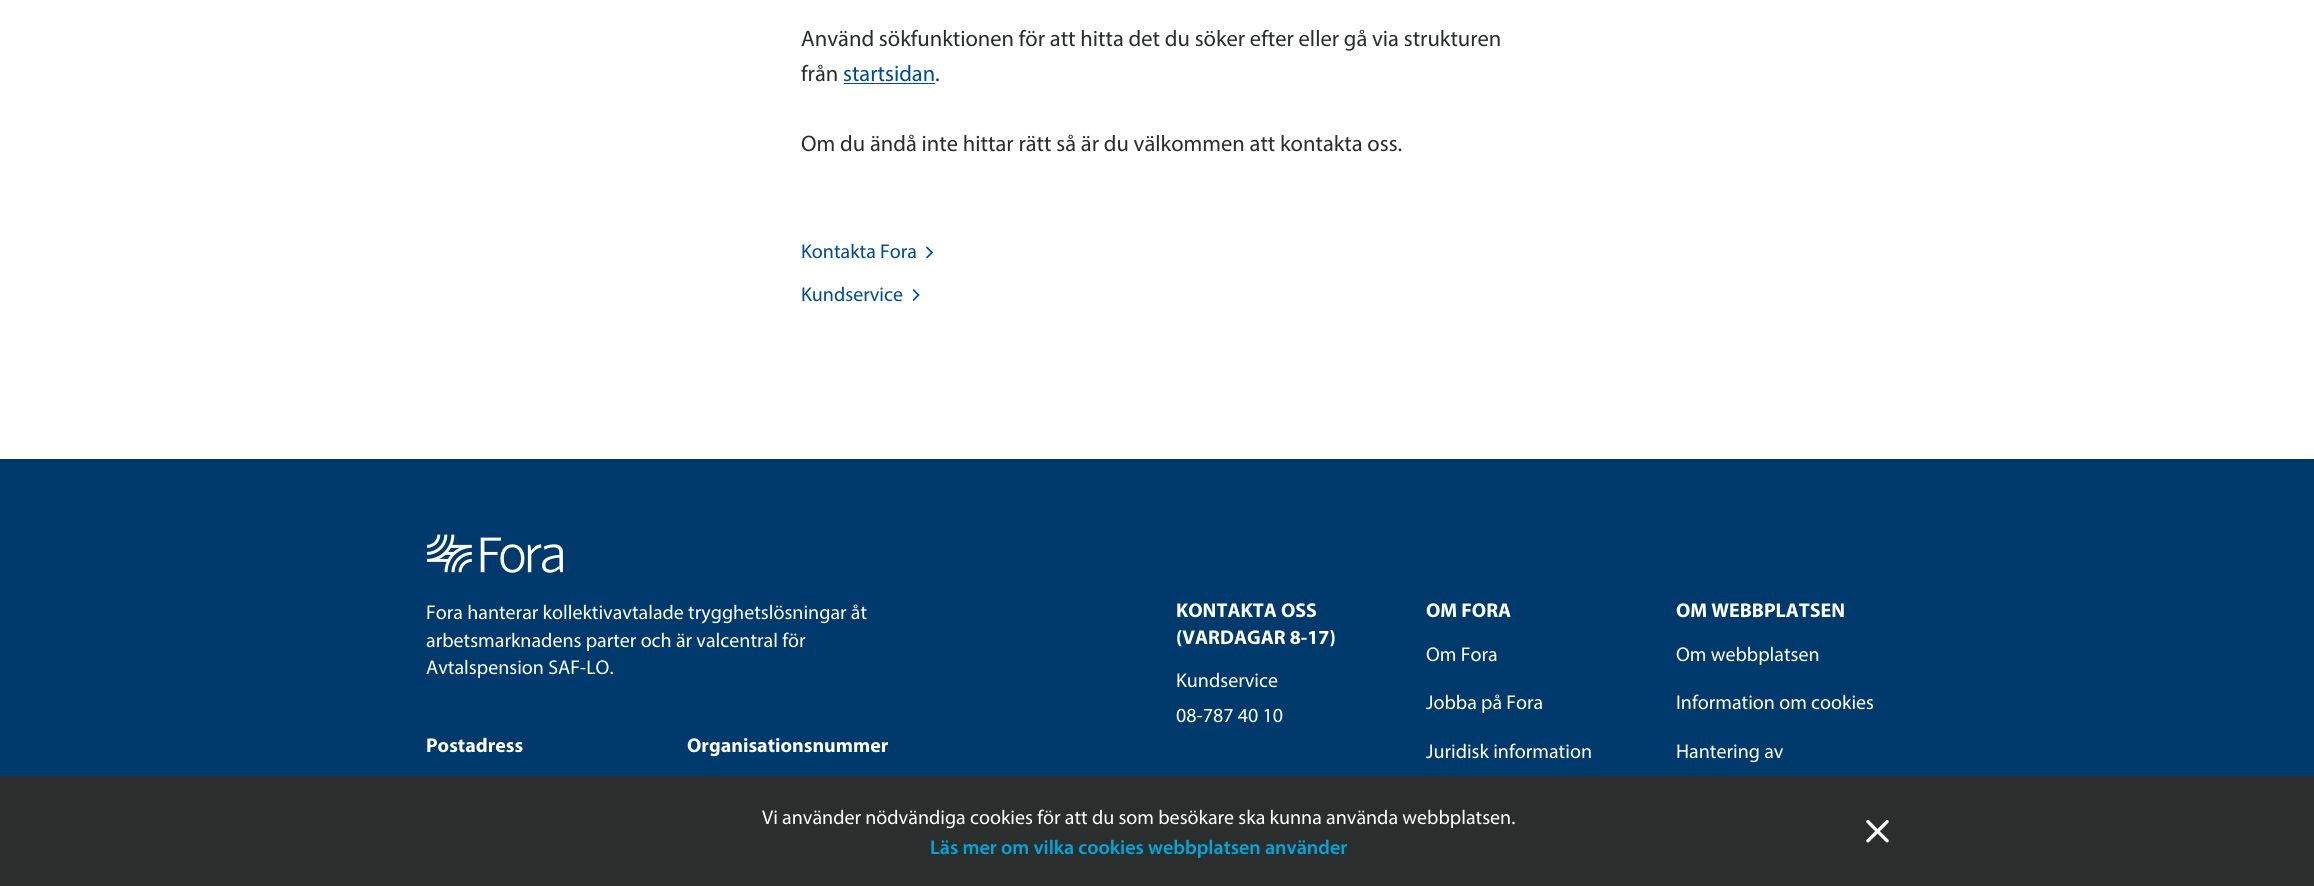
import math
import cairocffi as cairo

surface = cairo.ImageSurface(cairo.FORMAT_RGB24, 2314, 886)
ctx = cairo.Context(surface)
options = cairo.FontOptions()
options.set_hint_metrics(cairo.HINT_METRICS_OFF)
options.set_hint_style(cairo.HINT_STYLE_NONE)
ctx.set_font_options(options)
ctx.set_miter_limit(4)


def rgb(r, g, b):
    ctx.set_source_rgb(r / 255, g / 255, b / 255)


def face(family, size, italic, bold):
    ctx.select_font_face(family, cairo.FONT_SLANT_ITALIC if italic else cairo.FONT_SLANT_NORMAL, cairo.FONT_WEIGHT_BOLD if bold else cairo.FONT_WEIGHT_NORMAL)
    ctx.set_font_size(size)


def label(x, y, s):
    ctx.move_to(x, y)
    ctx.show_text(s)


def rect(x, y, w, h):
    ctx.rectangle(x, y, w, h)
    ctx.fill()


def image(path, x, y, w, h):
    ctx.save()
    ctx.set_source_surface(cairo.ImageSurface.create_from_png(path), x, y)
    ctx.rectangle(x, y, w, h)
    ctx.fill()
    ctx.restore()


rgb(255, 255, 255)
ctx.paint()
face('Myriad', 22.5, 0, 0)
rgb(42, 46, 45)
label(801, 46, 'Använd sökfunktionen för att hitta det du söker efter eller gå via strukturen')
label(801, 81, 'från')
rgb(0, 76, 144)
label(843, 81, 'startsidan')
rect(844, 83, 91, 1)
rgb(42, 46, 45)
label(935, 81, '.')
label(801, 151, 'Om du ändå inte hittar rätt så är du välkommen att kontakta oss.')
face('Myriad', 20, 0, 0)
rgb(0, 76, 144)
label(801, 258, 'Kontakta Fora')
ctx.new_path()
ctx.move_to(927, 257.5)
ctx.line_to(932, 252.5)
ctx.line_to(927, 247.5)
ctx.set_line_width(1.7)
ctx.set_line_cap(cairo.LINE_CAP_ROUND)
ctx.stroke()
label(801, 301, 'Kundservice')
ctx.save()
ctx.rectangle(913, 289, 7, 12)
ctx.clip()
ctx.new_path()
ctx.move_to(913.5, 300)
ctx.line_to(918.5, 295)
ctx.line_to(913.5, 290)
ctx.stroke()
ctx.restore()
rgb(0, 57, 108)
rect(0, 459, 2314, 317)
image('image0.png', 427, 534, 136, 39)
rgb(255, 255, 255)
label(426, 619, 'Fora hanterar kollektivavtalade trygghetslösningar åt')
label(426, 647, 'arbetsmarknadens parter och är valcentral för')
label(426, 674, 'Avtalspension SAF-LO.')
face('Myriad', 20, 0, 1)
label(426, 752, 'Postadress')
label(687, 752, 'Organisationsnummer')
label(1176, 617, 'KONTAKTA OSS')
label(1176, 644, '(VARDAGAR 8-17)')
face('Myriad', 20, 0, 0)
label(1176, 687, 'Kundservice')
label(1176, 722, '08-787 40 10')
face('Myriad', 20, 0, 1)
label(1426, 617, 'OM FORA')
face('Myriad', 20, 0, 0)
label(1426, 661, 'Om Fora')
label(1426, 709, 'Jobba på Fora')
label(1426, 758, 'Juridisk information')
face('Myriad', 20, 0, 1)
label(1676, 617, 'OM WEBBPLATSEN')
face('Myriad', 20, 0, 0)
label(1676, 661, 'Om webbplatsen')
label(1676, 709, 'Information om cookies')
label(1676, 758, 'Hantering av')
rgb(42, 46, 45)
rect(0, 776, 2314, 110)
rgb(255, 255, 255)
label(762, 824, 'Vi använder nödvändiga cookies för att du som besökare ska kunna använda webbplatsen.')
face('Myriad SemiBold', 20, 0, 0)
rgb(0, 165, 218)
label(930, 854, 'Läs mer om vilka cookies webbplatsen använder')
image('image1.png', 1866, 820, 23, 23)
surface.write_to_png('render.png')
